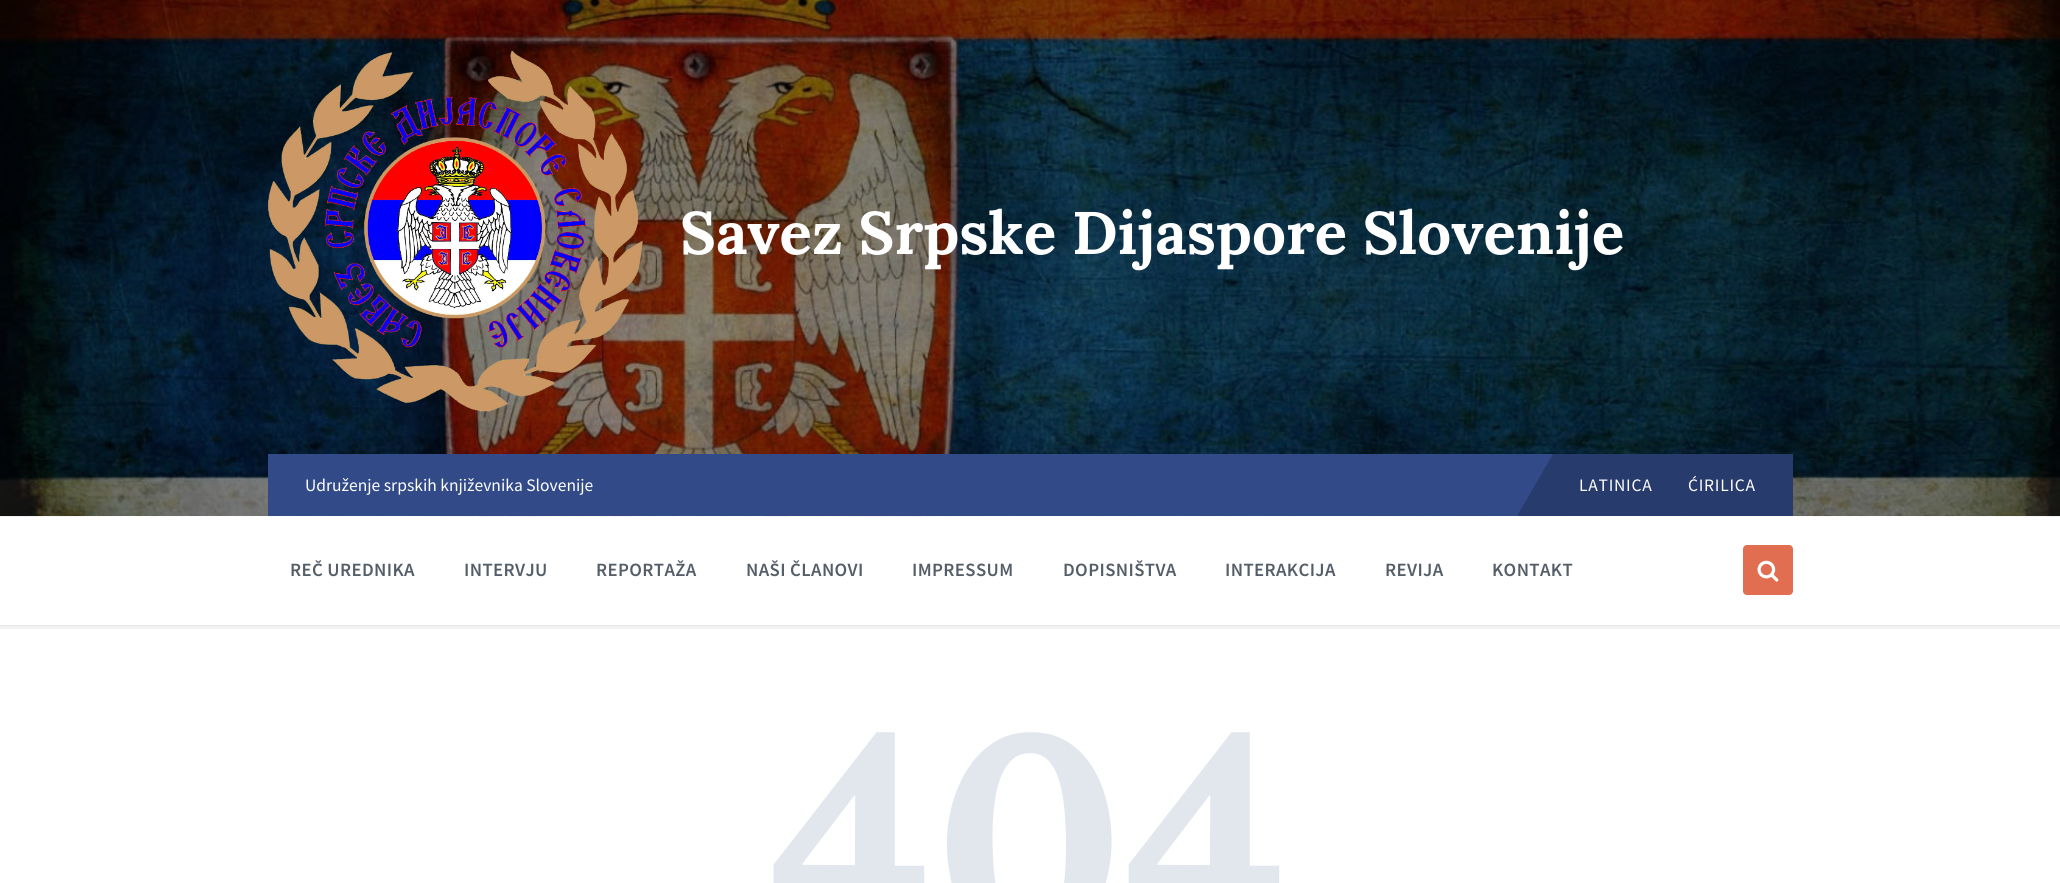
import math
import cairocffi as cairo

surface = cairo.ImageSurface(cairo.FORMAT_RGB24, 2060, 883)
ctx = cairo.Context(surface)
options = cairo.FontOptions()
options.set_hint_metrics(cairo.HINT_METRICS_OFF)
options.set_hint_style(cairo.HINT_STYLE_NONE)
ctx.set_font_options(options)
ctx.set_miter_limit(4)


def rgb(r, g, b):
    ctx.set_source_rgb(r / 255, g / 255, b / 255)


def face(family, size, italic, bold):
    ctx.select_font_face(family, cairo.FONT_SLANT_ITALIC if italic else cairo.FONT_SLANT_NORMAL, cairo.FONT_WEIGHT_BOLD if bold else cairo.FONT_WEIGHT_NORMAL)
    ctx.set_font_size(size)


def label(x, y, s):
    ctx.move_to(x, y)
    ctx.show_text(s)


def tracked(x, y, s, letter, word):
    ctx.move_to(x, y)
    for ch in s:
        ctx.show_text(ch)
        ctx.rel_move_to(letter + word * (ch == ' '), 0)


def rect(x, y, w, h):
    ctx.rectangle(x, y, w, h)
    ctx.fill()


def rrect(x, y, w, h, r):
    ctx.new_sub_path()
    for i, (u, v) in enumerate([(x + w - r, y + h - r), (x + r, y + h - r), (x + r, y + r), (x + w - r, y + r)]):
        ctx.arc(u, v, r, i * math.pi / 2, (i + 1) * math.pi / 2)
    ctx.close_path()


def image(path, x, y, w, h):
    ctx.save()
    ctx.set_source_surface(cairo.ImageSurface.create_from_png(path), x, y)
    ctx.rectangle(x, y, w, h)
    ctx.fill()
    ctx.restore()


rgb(255, 255, 255)
ctx.paint()
ctx.rectangle(-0.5, 515.5, 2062, 112)
rgb(242, 242, 242)
ctx.set_line_width(3)
ctx.stroke()
rgb(255, 255, 255)
rect(0, 516, 2060, 109)
image('image0.png', 0, 0, 2060, 517)
image('image1.png', 268, 50, 375, 362)
face('Lora', 60, 0, 1)
label(680, 254, 'Savez Srpske Dijaspore Slovenije')
rgb(50, 74, 136)
rect(268, 454, 1285, 62)
face('Source Sans Pro', 17.5, 0, 0)
rgb(255, 255, 255)
label(305, 491, 'Udruženje srpskih književnika Slovenije')
ctx.save()
ctx.rectangle(268, 454, 1525, 62)
ctx.clip()
rgb(40, 59, 109)
ctx.new_path()
ctx.move_to(1634, 314)
ctx.line_to(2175, 626)
ctx.line_to(2050, 843)
ctx.line_to(1509, 530)
ctx.close_path()
ctx.fill()
ctx.restore()
tracked(1579, 491, 'LATINICA', 0.75, 0)
tracked(1688, 491, 'ĆIRILICA', 0.75, 0)
rgb(230, 230, 230)
rect(0, 625, 2060, 1)
face('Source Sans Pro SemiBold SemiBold', 18.75, 0, 0)
rgb(84, 94, 105)
tracked(290, 576, 'REČ UREDNIKA', 0.4, 0)
tracked(464, 576, 'INTERVJU', 0.4, 0)
tracked(596, 576, 'REPORTAŽA', 0.4, 0)
tracked(746, 576, 'NAŠI ČLANOVI', 0.4, 0)
tracked(912, 576, 'IMPRESSUM', 0.4, 0)
tracked(1063, 576, 'DOPISNIŠTVA', 0.4, 0)
tracked(1225, 576, 'INTERAKCIJA', 0.4, 0)
tracked(1385, 576, 'REVIJA', 0.4, 0)
tracked(1492, 576, 'KONTAKT', 0.4, 0)
rgb(225, 110, 81)
rrect(1743, 545, 50, 50, 4)
ctx.fill()
image('image2.png', 1757, 560, 22, 22)
face('Lora', 300, 0, 1)
rgb(225, 231, 236)
label(770, 947, '404')
surface.write_to_png('render.png')
